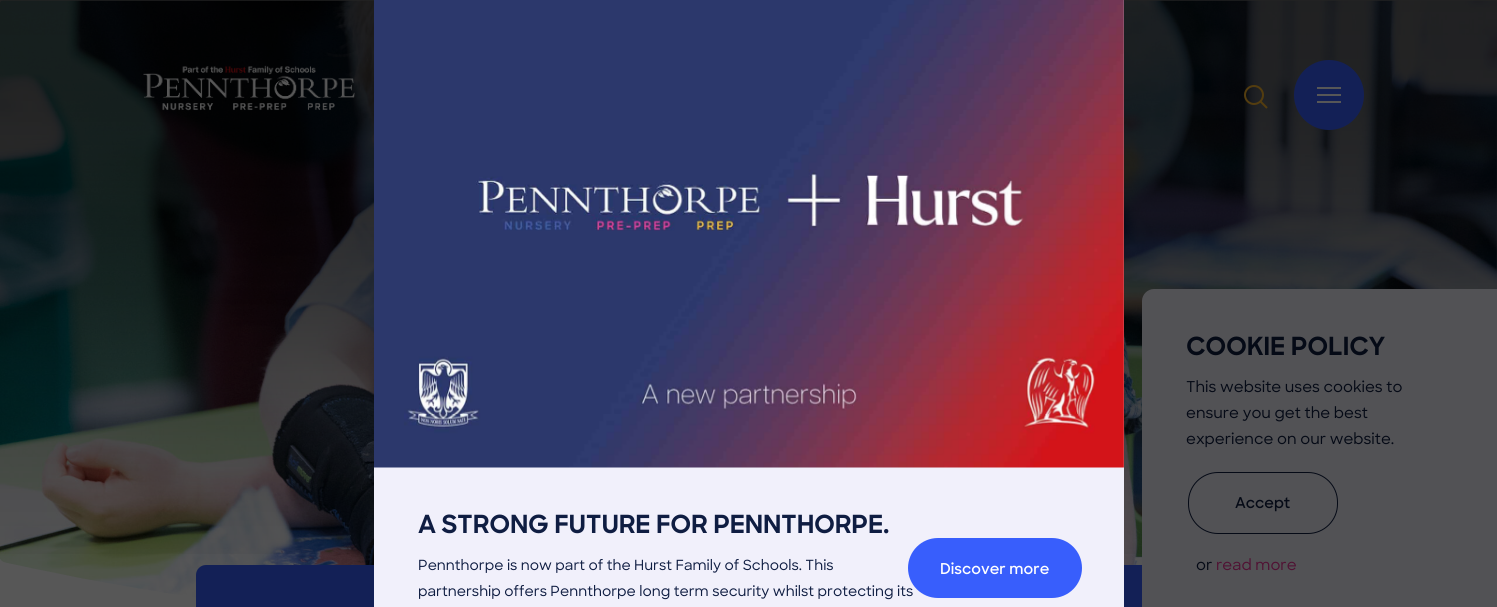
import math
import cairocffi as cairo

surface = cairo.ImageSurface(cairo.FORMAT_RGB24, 1497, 607)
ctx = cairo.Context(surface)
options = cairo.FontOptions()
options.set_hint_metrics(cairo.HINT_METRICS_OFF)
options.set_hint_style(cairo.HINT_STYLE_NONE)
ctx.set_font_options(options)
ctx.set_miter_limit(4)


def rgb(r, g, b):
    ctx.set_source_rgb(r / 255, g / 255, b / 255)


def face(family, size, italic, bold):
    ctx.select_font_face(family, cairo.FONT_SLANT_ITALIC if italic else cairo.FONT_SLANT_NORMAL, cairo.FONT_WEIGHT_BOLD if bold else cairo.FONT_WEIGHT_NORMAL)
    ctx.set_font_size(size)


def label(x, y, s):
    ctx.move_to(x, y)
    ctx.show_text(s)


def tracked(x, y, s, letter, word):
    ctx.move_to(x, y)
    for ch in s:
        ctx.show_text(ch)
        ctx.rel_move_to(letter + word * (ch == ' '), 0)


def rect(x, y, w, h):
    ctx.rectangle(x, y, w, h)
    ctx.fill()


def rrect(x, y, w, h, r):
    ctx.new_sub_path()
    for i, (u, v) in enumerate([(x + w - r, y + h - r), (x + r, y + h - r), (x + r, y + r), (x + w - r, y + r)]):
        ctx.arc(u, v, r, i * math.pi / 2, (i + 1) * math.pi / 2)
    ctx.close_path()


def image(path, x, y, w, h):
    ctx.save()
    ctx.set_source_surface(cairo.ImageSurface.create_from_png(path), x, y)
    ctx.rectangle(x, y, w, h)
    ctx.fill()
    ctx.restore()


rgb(87, 87, 87)
ctx.paint()
image('image0.png', 0, 0, 1497, 598)
gradient = cairo.LinearGradient(749, 0, 749, 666)
gradient.add_color_stop_rgba(0, 0, 0, 0, 0.6)
gradient.add_color_stop_rgba(0.09, 0, 0, 0, 0.59)
gradient.add_color_stop_rgba(0.17, 0, 0, 0, 0.57)
gradient.add_color_stop_rgba(0.24, 0, 0, 0, 0.53)
gradient.add_color_stop_rgba(0.31, 0, 0, 0, 0.48)
gradient.add_color_stop_rgba(0.37, 0, 0, 0, 0.43)
gradient.add_color_stop_rgba(0.44, 0, 0, 0, 0.37)
gradient.add_color_stop_rgba(0.5, 0, 0, 0, 0.3)
gradient.add_color_stop_rgba(0.56, 0, 0, 0, 0.23)
gradient.add_color_stop_rgba(0.63, 0, 0, 0, 0.17)
gradient.add_color_stop_rgba(0.69, 0, 0, 0, 0.12)
gradient.add_color_stop_rgba(0.76, 0, 0, 0, 0.07)
gradient.add_color_stop_rgba(0.83, 0, 0, 0, 0.03)
gradient.add_color_stop_rgba(0.91, 0, 0, 0, 0.01)
gradient.add_color_stop_rgba(1, 0, 0, 0, 0)
ctx.set_source(gradient)
rect(0, 0, 1497, 554)
rgb(19, 32, 86)
rrect(196, 565, 1105, 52, 10)
ctx.fill()
image('image1.png', 143, 65, 212, 46)
ctx.arc(1254, 95, 9, 0, 2 * math.pi)
rgb(84, 61, 15)
ctx.stroke()
ctx.new_path()
ctx.move_to(1267, 108)
ctx.line_to(1260.5, 101.5)
ctx.stroke()
rgb(19, 32, 86)
ctx.arc(1329, 95, 35, 0, 2 * math.pi)
ctx.fill()
rgb(87, 87, 87)
rect(1317, 87, 24, 2)
rect(1317, 94, 24, 2)
rect(1317, 101, 24, 2)
rgb(241, 240, 251)
rect(374, 0, 750, 607)
image('image2.png', 374, 0, 750, 468)
face('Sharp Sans', 25, 0, 1)
rgb(15, 29, 66)
tracked(418, 533, 'A STRONG FUTURE FOR PENNTHORPE.', -0.25, 0)
face('Sharp Sans Medium', 14, 0, 0)
label(418, 570, 'Pennthorpe is now part of the Hurst Family of Schools. This')
label(418, 596, 'partnership offers Pennthorpe long term security whilst protecting its')
rgb(56, 94, 252)
rrect(908, 538, 174, 60, 30)
ctx.fill()
face('Sharp Sans SemiBold', 15, 0, 0)
rgb(255, 255, 255)
label(940, 574, 'Discover more')
rgb(82, 82, 85)
ctx.new_path()
ctx.move_to(1154, 289)
ctx.line_to(1497, 289)
ctx.line_to(1497, 607)
ctx.line_to(1142, 607)
ctx.line_to(1142, 301)
ctx.curve_to(1142, 294.5, 1147.5, 289, 1154, 289)
ctx.close_path()
ctx.fill()
face('Sharp Sans', 25, 0, 1)
rgb(5, 10, 22)
tracked(1186, 355, 'COOKIE POLICY', -0.25, 0)
face('Sharp Sans Medium', 15, 0, 0)
label(1186, 392, 'This website uses cookies to')
label(1186, 418, 'ensure you get the best')
label(1186, 444, 'experience on our website.')
rrect(1188.5, 472.5, 149, 61, 29.5)
ctx.set_line_width(1)
ctx.stroke()
face('Sharp Sans SemiBold', 15, 0, 0)
label(1235, 508, 'Accept')
face('Sharp Sans Medium', 15, 0, 0)
label(1196, 570, 'or')
rgb(80, 17, 51)
label(1216, 570, 'read more')
surface.write_to_png('render.png')
